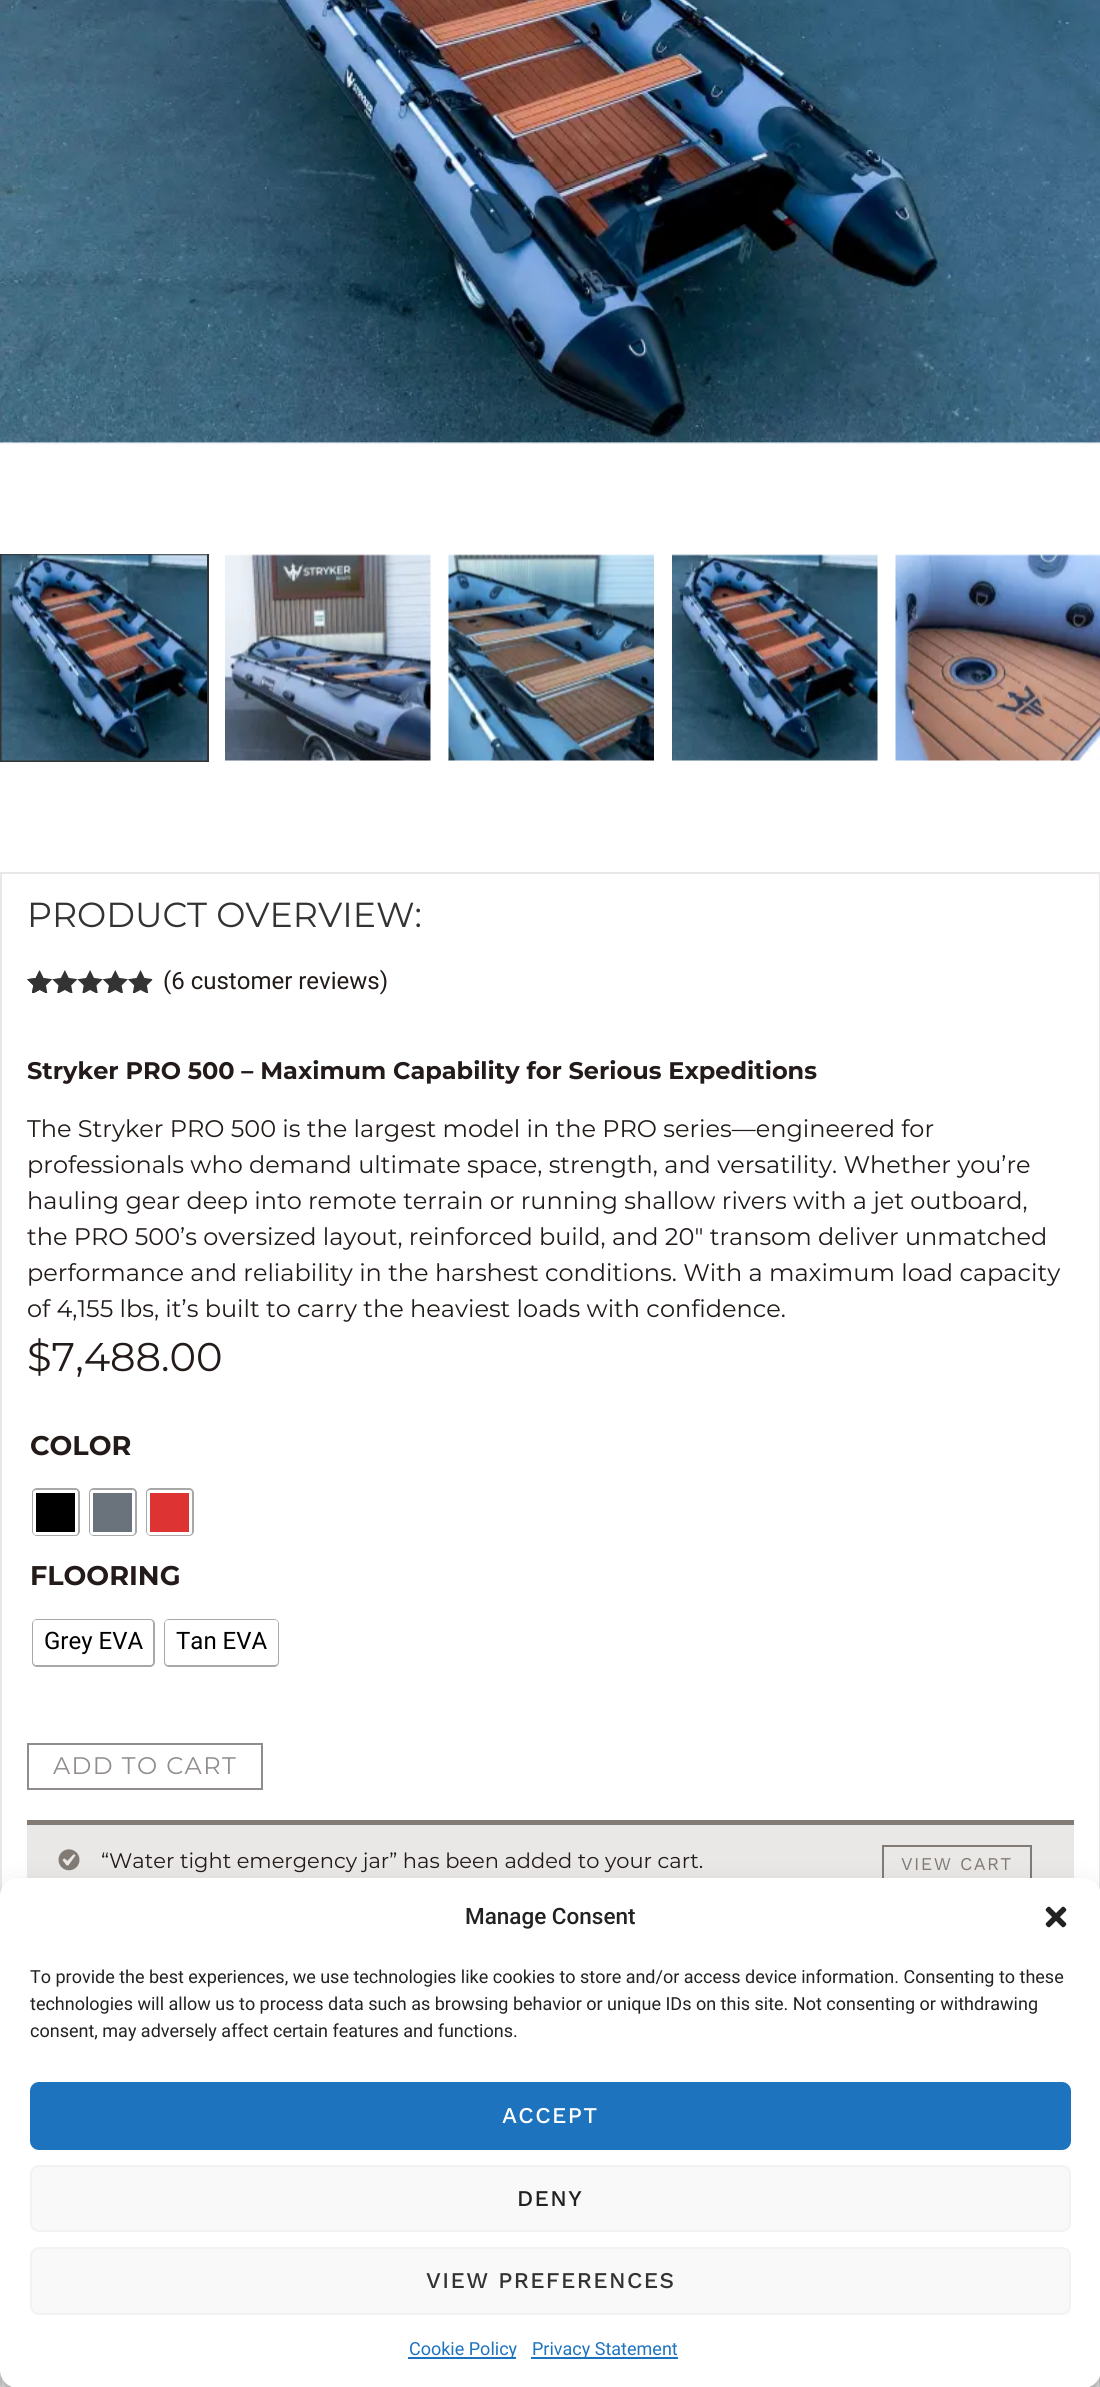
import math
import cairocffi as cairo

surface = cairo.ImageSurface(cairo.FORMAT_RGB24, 1100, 2387)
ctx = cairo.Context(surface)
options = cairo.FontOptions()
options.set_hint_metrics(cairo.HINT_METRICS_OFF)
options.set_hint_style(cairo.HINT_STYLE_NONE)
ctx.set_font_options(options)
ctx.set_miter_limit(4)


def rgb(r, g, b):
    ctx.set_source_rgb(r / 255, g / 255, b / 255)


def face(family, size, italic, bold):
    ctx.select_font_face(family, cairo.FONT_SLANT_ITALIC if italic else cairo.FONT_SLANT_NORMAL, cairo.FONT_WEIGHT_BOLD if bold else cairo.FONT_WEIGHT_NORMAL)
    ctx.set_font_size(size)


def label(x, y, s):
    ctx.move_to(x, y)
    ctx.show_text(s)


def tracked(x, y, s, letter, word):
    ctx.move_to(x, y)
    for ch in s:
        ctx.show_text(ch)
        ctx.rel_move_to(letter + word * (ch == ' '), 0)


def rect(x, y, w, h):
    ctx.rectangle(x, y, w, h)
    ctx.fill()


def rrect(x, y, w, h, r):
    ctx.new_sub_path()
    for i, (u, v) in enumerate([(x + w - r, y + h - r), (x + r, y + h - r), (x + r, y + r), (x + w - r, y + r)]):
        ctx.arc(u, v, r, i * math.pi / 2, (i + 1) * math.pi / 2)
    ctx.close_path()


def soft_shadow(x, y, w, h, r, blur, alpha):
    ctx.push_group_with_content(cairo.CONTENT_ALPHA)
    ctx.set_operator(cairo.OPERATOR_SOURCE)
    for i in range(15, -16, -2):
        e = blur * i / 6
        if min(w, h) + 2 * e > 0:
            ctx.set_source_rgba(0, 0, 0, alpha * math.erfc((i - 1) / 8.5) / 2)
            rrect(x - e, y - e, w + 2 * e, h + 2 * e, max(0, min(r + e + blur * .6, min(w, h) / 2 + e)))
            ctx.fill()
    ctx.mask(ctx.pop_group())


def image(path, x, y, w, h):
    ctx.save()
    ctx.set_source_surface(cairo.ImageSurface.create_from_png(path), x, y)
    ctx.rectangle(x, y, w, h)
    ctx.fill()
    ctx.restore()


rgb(255, 255, 255)
ctx.paint()
image('image0.png', 0, 0, 1100, 444)
ctx.rectangle(1, 555, 207, 206)
rgb(51, 51, 51)
ctx.stroke()
image('image1.png', 1, 554, 206, 207)
image('image2.png', 225, 554, 206, 207)
image('image3.png', 448, 554, 206, 207)
image('image4.png', 672, 554, 206, 207)
image('image5.png', 895, 554, 205, 207)
ctx.rectangle(1, 873, 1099, 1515)
rgb(233, 232, 230)
ctx.stroke()
face('Montserrat', 34.75, 0, 0)
rgb(51, 51, 51)
label(27, 927, 'PRODUCT OVERVIEW:')
image('image6.png', 27, 970, 126, 23)
image('image7.png', 27, 970, 125, 23)
image('image8.png', 27, 971, 12, 22)
face('Roboto', 24, 0, 0)
rgb(34, 27, 25)
label(163, 989, '(6 customer reviews)')
face('Montserrat', 24, 0, 1)
label(27, 1079, 'Stryker PRO 500 – Maximum Capability for Serious Expeditions')
face('Montserrat', 24, 0, 0)
label(27, 1137, 'The Stryker PRO 500 is the largest model in the PRO series—engineered for')
label(27, 1173, 'professionals who demand ultimate space, strength, and versatility. Whether you’re')
label(27, 1209, 'hauling gear deep into remote terrain or running shallow rivers with a jet outboard,')
label(27, 1245, 'the PRO 500’s oversized layout, reinforced build, and 20″ transom deliver unmatched')
label(27, 1281, 'performance and reliability in the harshest conditions. With a maximum load capacity')
label(27, 1317, 'of 4,155 lbs, it’s built to carry the heaviest loads with confidence.')
face('Montserrat', 40, 0, 0)
label(27, 1371, '$7,488.00')
face('Montserrat', 27, 0, 1)
label(30, 1455, 'COLOR')
rrect(33, 1489, 46, 46, 4)
rgb(168, 168, 168)
ctx.stroke()
rgb(255, 255, 255)
rrect(33, 1490, 45, 45, 3)
ctx.fill()
rgb(0, 0, 0)
rect(36, 1493, 39, 39)
rrect(90, 1489, 46, 46, 4)
rgb(168, 168, 168)
ctx.stroke()
rgb(255, 255, 255)
rrect(90, 1490, 45, 45, 3)
ctx.fill()
rgb(106, 115, 124)
rect(93, 1493, 39, 39)
rrect(147, 1489, 46, 46, 4)
rgb(168, 168, 168)
ctx.stroke()
rgb(255, 255, 255)
rrect(147, 1490, 45, 45, 3)
ctx.fill()
rgb(221, 51, 51)
rect(150, 1493, 39, 39)
rgb(34, 27, 25)
label(30, 1585, 'FLOORING')
rrect(33, 1620, 121, 46, 4)
rgb(168, 168, 168)
ctx.stroke()
rgb(255, 255, 255)
rrect(33, 1620, 120, 45, 3)
ctx.fill()
face('Roboto', 24, 0, 0)
rgb(0, 0, 0)
label(44, 1649, 'Grey EVA')
rrect(165, 1620, 113, 46, 4)
rgb(168, 168, 168)
ctx.stroke()
rgb(255, 255, 255)
rrect(165, 1620, 113, 45, 3)
ctx.fill()
rgb(0, 0, 0)
label(176, 1649, 'Tan EVA')
ctx.rectangle(28, 1744, 234, 45)
rgb(145, 141, 140)
ctx.stroke()
face('Montserrat', 24, 0, 0)
tracked(53, 1774, 'ADD TO CART', 1.4, 0)
rgb(233, 232, 230)
rect(27, 1825, 1047, 53)
rgb(130, 123, 117)
rect(27, 1820, 1047, 5)
image('image9.png', 58, 1849, 22, 22)
face('Montserrat', 21, 0, 0)
rgb(34, 27, 25)
label(101, 1868, '“Water tight emergency jar” has been added to your cart.')
ctx.rectangle(883, 1846, 148, 34)
rgb(130, 123, 117)
ctx.stroke()
face('Work Sans', 18, 0, 0)
tracked(901, 1870, 'VIEW CART', 1.4, 0)
rgb(0, 0, 0)
soft_shadow(0, 1887, 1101, 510, 18, 4.5, 0.23)
soft_shadow(0, 1893, 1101, 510, 18, 15, 0.19)
rgb(255, 255, 255)
rrect(0, 1878, 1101, 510, 18)
ctx.fill()
face('Roboto Medium', 22.5, 0, 0)
rgb(34, 34, 34)
label(465, 1924, 'Manage Consent')
image('image10.png', 1045, 1906, 22, 22)
face('Roboto', 18, 0, 0)
label(30, 1983, 'To provide the best experiences, we use technologies like cookies to store and/or access device information. Consenting to these')
label(30, 2010, 'technologies will allow us to process data such as browsing behavior or unique IDs on this site. Not consenting or withdrawing')
label(30, 2037, 'consent, may adversely affect certain features and functions.')
rgb(30, 115, 190)
rrect(31, 2083, 1039, 66, 8)
ctx.fill_preserve()
ctx.stroke()
face('Work Sans Medium', 22.5, 0, 0)
rgb(255, 255, 255)
tracked(502, 2123, 'ACCEPT', 1.4, 0)
rgb(249, 249, 249)
rrect(31, 2166, 1039, 65, 8)
ctx.fill_preserve()
rgb(242, 242, 242)
ctx.stroke()
rgb(34, 34, 34)
tracked(517, 2206, 'DENY', 1.4, 0)
rgb(249, 249, 249)
rrect(31, 2248, 1039, 66, 8)
ctx.fill_preserve()
rgb(242, 242, 242)
ctx.stroke()
rgb(51, 51, 51)
tracked(426, 2288, 'VIEW PREFERENCES', 1.4, 0)
rgb(30, 115, 190)
rect(408, 2357, 108, 2)
face('Roboto', 18, 0, 0)
label(409, 2355, 'Cookie Policy')
rect(531, 2357, 147, 2)
label(532, 2355, 'Privacy Statement')
surface.write_to_png('render.png')
